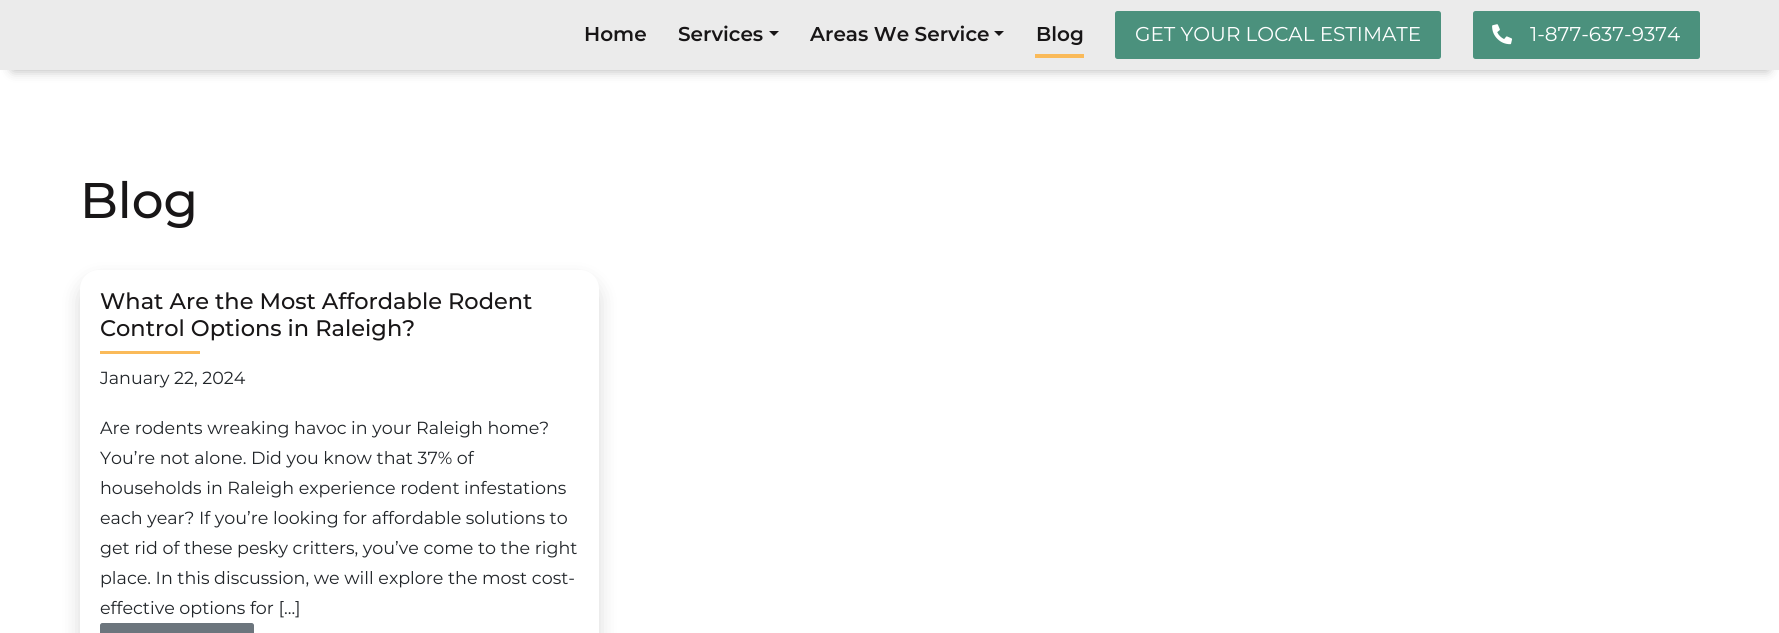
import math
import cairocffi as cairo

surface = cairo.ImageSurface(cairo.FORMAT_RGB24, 1779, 633)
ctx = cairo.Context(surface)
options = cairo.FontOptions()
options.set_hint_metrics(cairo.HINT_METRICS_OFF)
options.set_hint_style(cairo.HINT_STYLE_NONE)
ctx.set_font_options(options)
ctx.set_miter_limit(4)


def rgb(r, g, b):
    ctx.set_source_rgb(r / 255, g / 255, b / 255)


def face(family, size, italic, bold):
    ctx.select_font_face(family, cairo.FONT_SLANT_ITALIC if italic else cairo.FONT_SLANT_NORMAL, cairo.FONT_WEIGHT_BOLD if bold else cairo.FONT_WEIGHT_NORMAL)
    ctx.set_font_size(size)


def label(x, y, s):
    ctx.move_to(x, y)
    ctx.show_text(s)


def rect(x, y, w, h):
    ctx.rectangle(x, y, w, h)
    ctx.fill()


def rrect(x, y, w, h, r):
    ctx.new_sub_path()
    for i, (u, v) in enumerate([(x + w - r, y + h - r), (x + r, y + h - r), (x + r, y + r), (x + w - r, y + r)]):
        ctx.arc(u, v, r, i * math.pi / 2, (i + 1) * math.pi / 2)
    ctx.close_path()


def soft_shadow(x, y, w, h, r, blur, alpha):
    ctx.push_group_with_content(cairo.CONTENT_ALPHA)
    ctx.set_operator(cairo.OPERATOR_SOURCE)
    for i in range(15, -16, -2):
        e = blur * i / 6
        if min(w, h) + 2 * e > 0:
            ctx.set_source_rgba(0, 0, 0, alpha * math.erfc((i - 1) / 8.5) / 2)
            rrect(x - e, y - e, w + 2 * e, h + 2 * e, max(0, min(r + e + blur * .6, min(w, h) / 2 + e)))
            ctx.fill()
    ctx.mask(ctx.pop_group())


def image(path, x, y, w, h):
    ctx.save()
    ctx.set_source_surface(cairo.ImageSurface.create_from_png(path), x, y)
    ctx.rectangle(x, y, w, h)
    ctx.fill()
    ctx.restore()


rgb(255, 255, 255)
ctx.paint()
rgb(17, 17, 17)
soft_shadow(13, 25, 1755, 45, 0, 6, 0.33)
rgb(235, 235, 235)
rect(0, 0, 1779, 70)
face('Montserrat SemiBold', 20, 0, 0)
rgb(24, 22, 23)
label(584, 41, 'Home')
label(678, 41, 'Services')
ctx.new_path()
ctx.move_to(769, 31)
ctx.line_to(779, 31)
ctx.line_to(774, 36)
ctx.close_path()
ctx.fill()
label(810, 41, 'Areas We Service')
ctx.new_path()
ctx.move_to(994, 31)
ctx.line_to(1004, 31)
ctx.line_to(999, 36)
ctx.close_path()
ctx.fill()
label(1036, 41, 'Blog')
rgb(250, 186, 89)
rect(1035, 54, 49, 4)
rgb(75, 145, 125)
rrect(1115, 11, 326, 48, 2.5)
ctx.fill()
face('Montserrat', 20, 0, 0)
rgb(255, 255, 255)
label(1135, 41, 'GET YOUR LOCAL ESTIMATE')
rgb(75, 145, 125)
rrect(1473, 11, 227, 48, 2.5)
ctx.fill()
image('image0.png', 1492, 24, 21, 21)
rgb(255, 255, 255)
label(1530, 41, '1-877-637-9374')
face('Montserrat Medium', 50, 0, 0)
rgb(24, 22, 23)
label(80, 218, 'Blog')
rgb(0, 0, 0)
soft_shadow(80, 280, 519, 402, 19, 10, 0.15)
rgb(255, 255, 255)
ctx.new_path()
ctx.move_to(99, 270)
ctx.line_to(580, 270)
ctx.curve_to(590.5, 270, 599, 278.5, 599, 289)
ctx.line_to(599, 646)
ctx.curve_to(599, 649.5, 596.5, 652, 593, 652)
ctx.line_to(86, 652)
ctx.curve_to(82.5, 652, 80, 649.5, 80, 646)
ctx.line_to(80, 289)
ctx.curve_to(80, 278.5, 88.5, 270, 99, 270)
ctx.close_path()
ctx.fill()
face('Montserrat Medium', 22.5, 0, 0)
rgb(24, 22, 23)
label(100, 309, 'What Are the Most Affordable Rodent')
label(100, 336, 'Control Options in Raleigh?')
rgb(250, 186, 89)
rect(100, 351, 100, 3)
face('Montserrat', 17.5, 0, 0)
rgb(33, 37, 41)
label(100, 384, 'January 22, 2024')
label(100, 434, 'Are rodents wreaking havoc in your Raleigh home?')
label(100, 464, 'You’re not alone. Did you know that 37% of')
label(100, 494, 'households in Raleigh experience rodent infestations')
label(100, 524, 'each year? If you’re looking for affordable solutions to')
label(100, 554, 'get rid of these pesky critters, you’ve come to the right')
label(100, 584, 'place. In this discussion, we will explore the most cost-')
label(100, 614, 'effective options for [...]')
rgb(108, 117, 125)
rrect(100.5, 623.5, 153, 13, 2)
ctx.fill_preserve()
ctx.set_line_width(1)
ctx.stroke()
surface.write_to_png('render.png')
